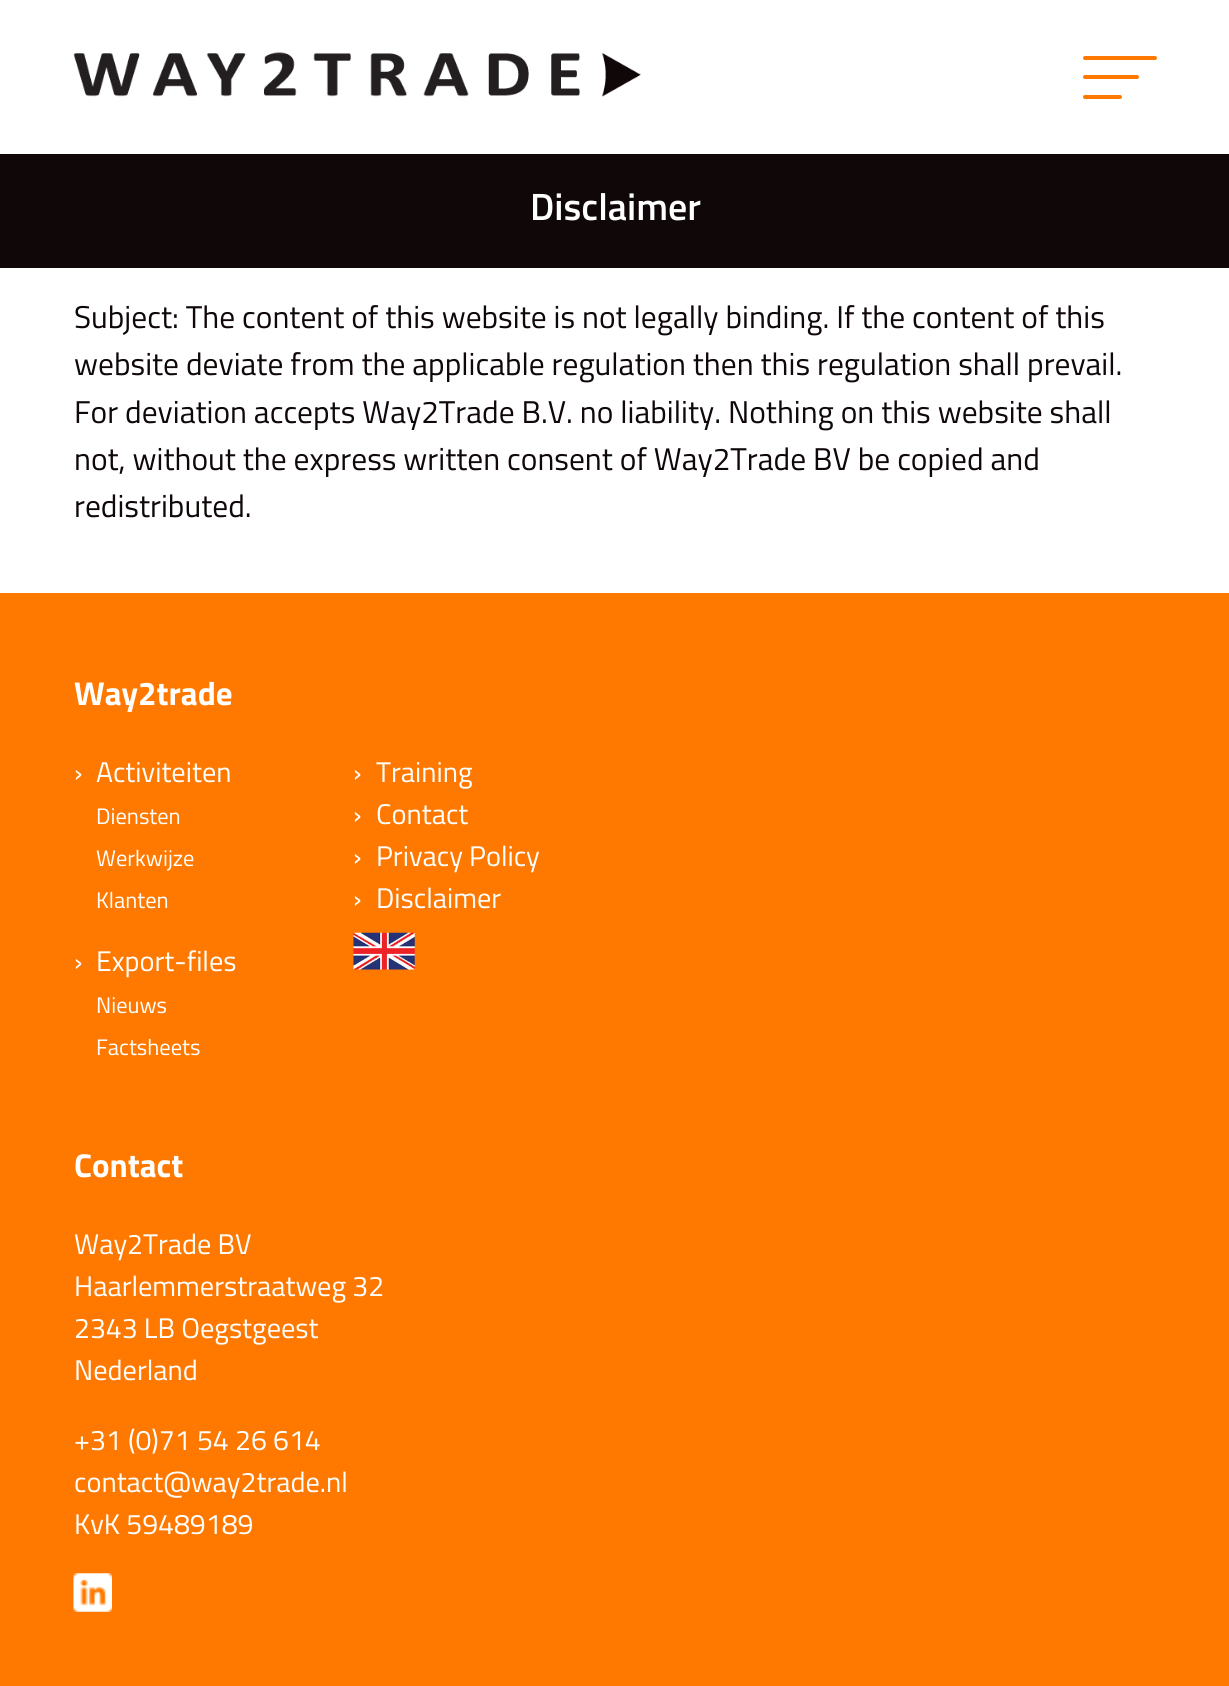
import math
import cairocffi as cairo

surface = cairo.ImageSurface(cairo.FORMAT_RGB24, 1229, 1686)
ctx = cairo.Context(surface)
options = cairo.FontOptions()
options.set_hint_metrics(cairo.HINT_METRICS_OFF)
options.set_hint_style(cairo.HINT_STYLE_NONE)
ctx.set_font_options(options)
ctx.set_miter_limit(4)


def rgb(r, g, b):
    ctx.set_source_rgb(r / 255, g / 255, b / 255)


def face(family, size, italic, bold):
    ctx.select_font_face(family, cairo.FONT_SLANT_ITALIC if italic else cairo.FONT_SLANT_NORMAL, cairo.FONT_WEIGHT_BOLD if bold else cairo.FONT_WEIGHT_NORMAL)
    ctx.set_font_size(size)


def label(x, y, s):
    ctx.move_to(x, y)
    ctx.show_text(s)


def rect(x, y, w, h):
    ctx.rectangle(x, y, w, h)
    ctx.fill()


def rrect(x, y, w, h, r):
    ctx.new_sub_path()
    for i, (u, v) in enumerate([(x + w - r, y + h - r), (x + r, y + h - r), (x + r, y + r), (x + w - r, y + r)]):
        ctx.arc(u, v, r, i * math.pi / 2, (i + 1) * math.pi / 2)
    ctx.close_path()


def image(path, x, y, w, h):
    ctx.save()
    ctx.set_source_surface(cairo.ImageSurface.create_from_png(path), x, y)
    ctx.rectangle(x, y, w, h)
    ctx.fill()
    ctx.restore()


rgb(255, 255, 255)
ctx.paint()
image('image0.png', 73, 52, 568, 45)
rgb(255, 121, 0)
rrect(1083, 75, 56, 4, 2)
ctx.fill()
rrect(1083, 56, 74, 4, 2)
ctx.fill()
rrect(1083, 95, 39, 4, 2)
ctx.fill()
rgb(15, 7, 8)
rect(0, 154, 1229, 114)
face('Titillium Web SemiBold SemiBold', 38, 0, 0)
rgb(255, 255, 255)
label(530, 220, 'Disclaimer')
face('Titillium Web', 31.5, 0, 0)
rgb(15, 7, 8)
label(74, 328, 'Subject: The content of this website is not legally binding. If the content of this')
label(74, 375, 'website deviate from the applicable regulation then this regulation shall prevail.')
label(74, 423, 'For deviation accepts Way2Trade B.V. no liability. Nothing on this website shall')
label(74, 470, 'not, without the express written consent of Way2Trade BV be copied and')
label(74, 517, 'redistributed.')
rgb(255, 121, 0)
rect(0, 593, 1229, 1093)
face('Titillium Web', 33, 0, 1)
rgb(255, 255, 255)
label(74, 705, 'Way2trade')
face('Titillium Web', 28.4, 0, 0)
label(74, 782, '›')
label(96, 782, 'Activiteiten')
face('Titillium Web', 22.5, 0, 0)
label(96, 824, 'Diensten')
label(96, 866, 'Werkwijze')
label(96, 908, 'Klanten')
face('Titillium Web', 28.4, 0, 0)
label(74, 971, '›')
label(96, 971, 'Export-files')
face('Titillium Web', 22.5, 0, 0)
label(96, 1013, 'Nieuws')
label(96, 1055, 'Factsheets')
face('Titillium Web', 28.4, 0, 0)
label(353, 782, '›')
label(376, 782, 'Training')
label(353, 824, '›')
label(376, 824, 'Contact')
label(353, 866, '›')
label(376, 866, 'Privacy Policy')
label(353, 908, '›')
label(376, 908, 'Disclaimer')
image('image1.png', 353, 932, 62, 38)
face('Titillium Web', 33, 0, 1)
label(74, 1177, 'Contact')
face('Titillium Web', 28.4, 0, 0)
label(74, 1254, 'Way2Trade BV')
label(74, 1296, 'Haarlemmerstraatweg 32')
label(74, 1338, '2343 LB Oegstgeest')
label(74, 1380, 'Nederland')
label(74, 1450, '+31 (0)71 54 26 614')
label(74, 1492, 'contact@way2trade.nl')
label(74, 1534, 'KvK 59489189')
image('image2.png', 73, 1573, 39, 39)
surface.write_to_png('render.png')
